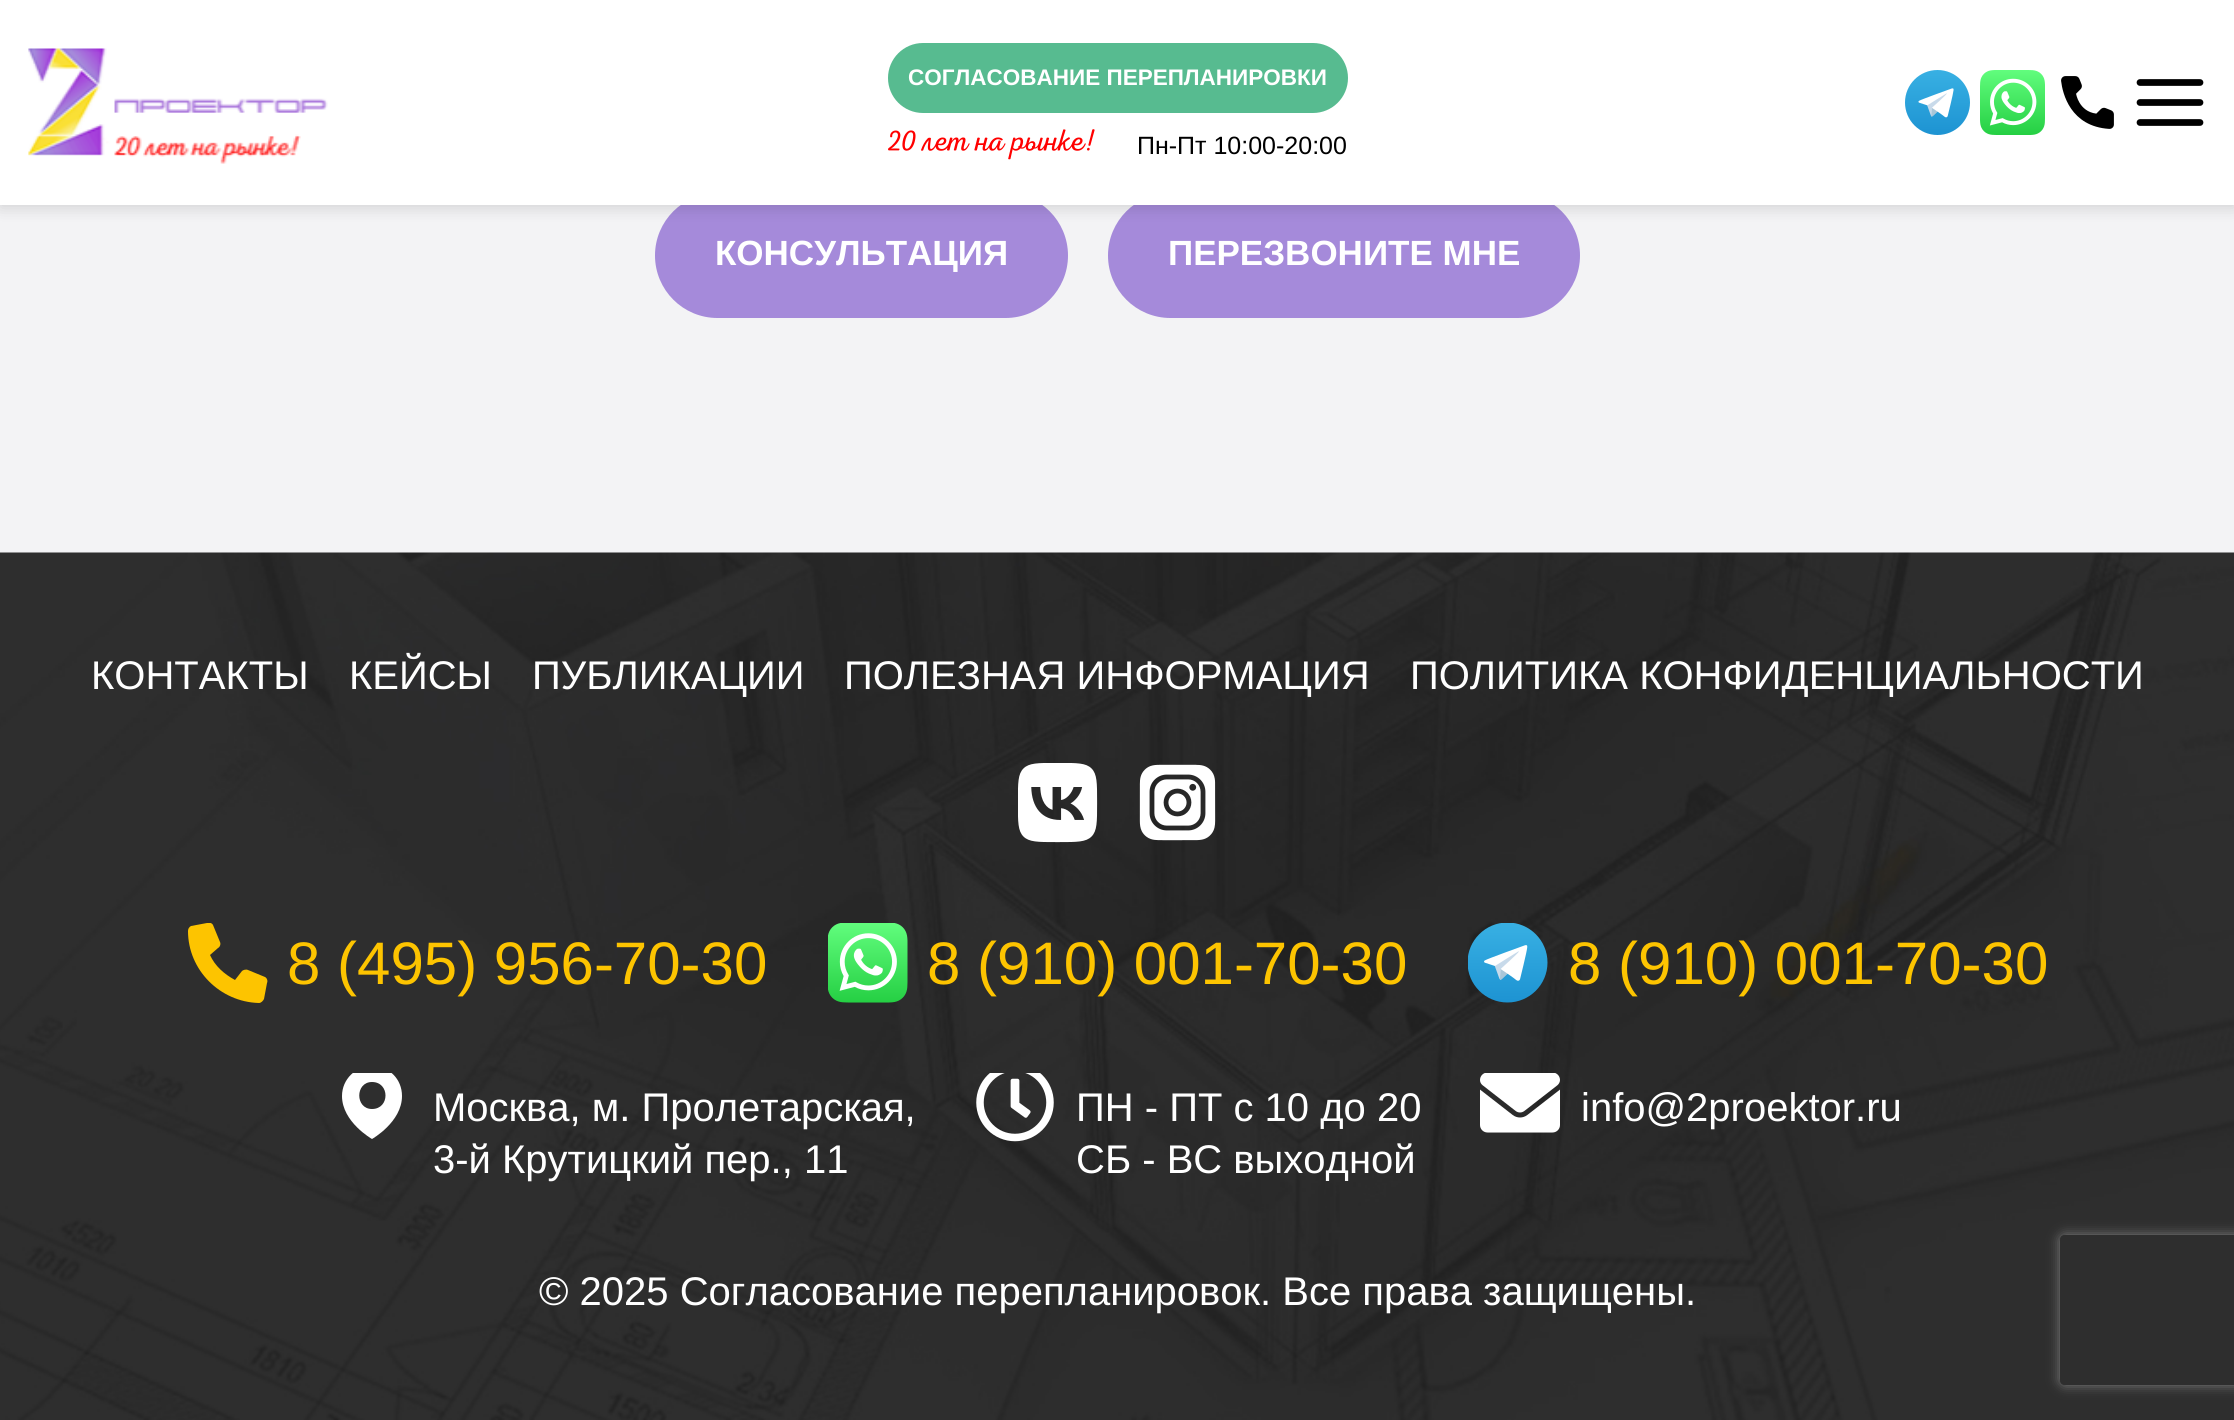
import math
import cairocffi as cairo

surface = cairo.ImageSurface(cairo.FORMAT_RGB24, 2234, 1420)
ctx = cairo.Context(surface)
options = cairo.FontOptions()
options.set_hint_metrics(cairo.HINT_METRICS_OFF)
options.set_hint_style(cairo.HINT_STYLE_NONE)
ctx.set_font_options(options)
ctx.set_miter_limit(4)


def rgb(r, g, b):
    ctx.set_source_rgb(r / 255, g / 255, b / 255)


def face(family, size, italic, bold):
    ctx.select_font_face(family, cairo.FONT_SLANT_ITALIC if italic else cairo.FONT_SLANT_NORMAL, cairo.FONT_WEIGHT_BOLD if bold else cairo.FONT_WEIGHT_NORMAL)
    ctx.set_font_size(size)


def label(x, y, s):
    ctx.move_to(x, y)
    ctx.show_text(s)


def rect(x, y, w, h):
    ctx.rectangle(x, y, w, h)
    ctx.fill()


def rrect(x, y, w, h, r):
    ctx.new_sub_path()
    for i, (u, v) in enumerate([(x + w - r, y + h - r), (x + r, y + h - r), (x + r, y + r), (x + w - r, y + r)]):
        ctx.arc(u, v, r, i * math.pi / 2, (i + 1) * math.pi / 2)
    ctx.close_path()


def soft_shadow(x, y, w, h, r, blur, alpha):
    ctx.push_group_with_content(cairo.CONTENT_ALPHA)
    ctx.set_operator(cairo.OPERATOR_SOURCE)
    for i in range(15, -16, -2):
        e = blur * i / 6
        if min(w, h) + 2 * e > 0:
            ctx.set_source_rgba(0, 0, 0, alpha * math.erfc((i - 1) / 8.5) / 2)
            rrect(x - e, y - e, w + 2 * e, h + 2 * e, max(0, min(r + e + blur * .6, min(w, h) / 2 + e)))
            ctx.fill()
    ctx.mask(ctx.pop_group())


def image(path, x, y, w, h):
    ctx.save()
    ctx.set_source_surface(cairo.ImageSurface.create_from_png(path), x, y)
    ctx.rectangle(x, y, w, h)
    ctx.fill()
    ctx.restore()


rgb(243, 243, 245)
ctx.paint()
rgb(165, 138, 218)
rrect(655, 193, 413, 125, 62.5)
ctx.fill()
rrect(1108, 193, 472, 125, 62.5)
ctx.fill()
rgb(0, 0, 0)
soft_shadow(0, 3, 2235, 205, 0, 7.5, 0.14)
rgb(255, 255, 255)
rect(0, 0, 2234, 205)
image('image0.png', 28, 48, 300, 116)
rgb(87, 187, 144)
rrect(888, 43, 460, 70, 35)
ctx.fill()
face('Liberation Sans', 22.5, 0, 1)
rgb(255, 255, 255)
label(908, 85, 'СОГЛАСОВАНИЕ ПЕРЕПЛАНИРОВКИ')
image('image1.png', 888, 129, 207, 31)
face('Liberation Sans', 25, 0, 0)
rgb(0, 0, 0)
label(1137, 154, 'Пн-Пт 10:00-20:00')
image('image2.png', 1905, 70, 65, 65)
image('image3.png', 1980, 70, 65, 65)
image('image4.png', 2061, 76, 53, 53)
ctx.new_path()
ctx.move_to(2140, 102.5)
ctx.line_to(2200, 102.5)
ctx.set_line_width(6.7)
ctx.set_line_cap(cairo.LINE_CAP_ROUND)
ctx.set_line_join(cairo.LINE_JOIN_ROUND)
ctx.stroke()
ctx.new_path()
ctx.move_to(2140, 82.5)
ctx.line_to(2200, 82.5)
ctx.stroke()
ctx.new_path()
ctx.move_to(2140, 122.5)
ctx.line_to(2200, 122.5)
ctx.stroke()
face('Liberation Sans', 35, 0, 1)
rgb(255, 255, 255)
label(715, 265, 'КОНСУЛЬТАЦИЯ')
label(1168, 265, 'ПЕРЕЗВОНИТЕ МНЕ')
image('image5.png', 0, 552, 2234, 868)
face('Liberation Sans', 40, 0, 0)
label(91, 689, 'КОНТАКТЫ')
label(349, 689, 'КЕЙСЫ')
label(532, 689, 'ПУБЛИКАЦИИ')
label(844, 689, 'ПОЛЕЗНАЯ ИНФОРМАЦИЯ')
label(1410, 689, 'ПОЛИТИКА КОНФИДЕНЦИАЛЬНОСТИ')
image('image6.png', 1018, 763, 80, 80)
image('image7.png', 1139, 764, 77, 77)
ctx.save()
ctx.rectangle(188, 923, 80, 80)
ctx.clip()
rgb(253, 196, 0)
ctx.new_path()
ctx.move_to(267, 983)
ctx.line_to(264, 999)
ctx.curve_to(263, 1001, 261, 1003, 259, 1003)
ctx.curve_to(220, 1002, 188, 970, 188, 931)
ctx.curve_to(188, 929, 189, 927, 191, 926)
ctx.line_to(207, 923)
ctx.curve_to(209, 922, 212, 923, 213, 925)
ctx.line_to(220, 942)
ctx.curve_to(221, 944, 220, 947, 218, 948)
ctx.line_to(210, 955)
ctx.curve_to(215, 966, 224, 974, 235, 980)
ctx.line_to(242, 971)
ctx.curve_to(243, 970, 246, 969, 248, 970)
ctx.line_to(265, 977)
ctx.curve_to(267, 978, 268, 981, 267, 983)
ctx.close_path()
ctx.fill()
ctx.restore()
face('Liberation Sans', 60, 0, 0)
rgb(253, 196, 0)
label(287, 984, '8 (495) 956-70-30')
image('image8.png', 828, 923, 80, 80)
label(927, 984, '8 (910) 001-70-30')
image('image9.png', 1468, 923, 80, 80)
label(1568, 984, '8 (910) 001-70-30')
ctx.save()
ctx.rectangle(333, 1073, 80, 80)
ctx.clip()
rgb(255, 255, 255)
ctx.new_path()
ctx.move_to(372, 1066)
ctx.curve_to(356, 1066, 342, 1079, 342, 1096)
ctx.curve_to(342, 1122, 372, 1139, 372, 1139)
ctx.curve_to(372, 1139, 402, 1122, 402, 1096)
ctx.curve_to(402, 1079, 389, 1066, 372, 1066)
ctx.close_path()
ctx.move_to(372, 1109)
ctx.curve_to(355, 1109, 355, 1082, 372, 1082)
ctx.curve_to(390, 1082, 390, 1109, 372, 1109)
ctx.close_path()
ctx.fill()
ctx.restore()
face('Liberation Sans', 40, 0, 0)
rgb(255, 255, 255)
label(433, 1121, 'Москва, м. Пролетарская,')
label(433, 1173, '3-й Крутицкий пер., 11')
image('image10.png', 976, 1073, 78, 69)
label(1076, 1121, 'ПН - ПТ с 10 до 20')
label(1076, 1173, 'СБ - ВС выходной')
image('image11.png', 1480, 1073, 80, 60)
label(1581, 1121, 'info@2proektor.ru')
label(539, 1305, '© 2025 Согласование перепланировок. Все права защищены.')
ctx.save()
ctx.set_fill_rule(cairo.FILL_RULE_EVEN_ODD)
ctx.new_path()
ctx.move_to(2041, 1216)
ctx.line_to(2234, 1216)
ctx.line_to(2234, 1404)
ctx.line_to(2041, 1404)
ctx.close_path()
ctx.move_to(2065, 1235)
ctx.line_to(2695, 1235)
ctx.curve_to(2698, 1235, 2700, 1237, 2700, 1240)
ctx.line_to(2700, 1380)
ctx.curve_to(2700, 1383, 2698, 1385, 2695, 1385)
ctx.line_to(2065, 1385)
ctx.curve_to(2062, 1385, 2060, 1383, 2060, 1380)
ctx.line_to(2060, 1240)
ctx.curve_to(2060, 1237, 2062, 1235, 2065, 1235)
ctx.close_path()
ctx.clip()
rgb(128, 128, 128)
soft_shadow(2060, 1235, 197, 150, 5, 6, 1)
ctx.restore()
surface.write_to_png('render.png')
